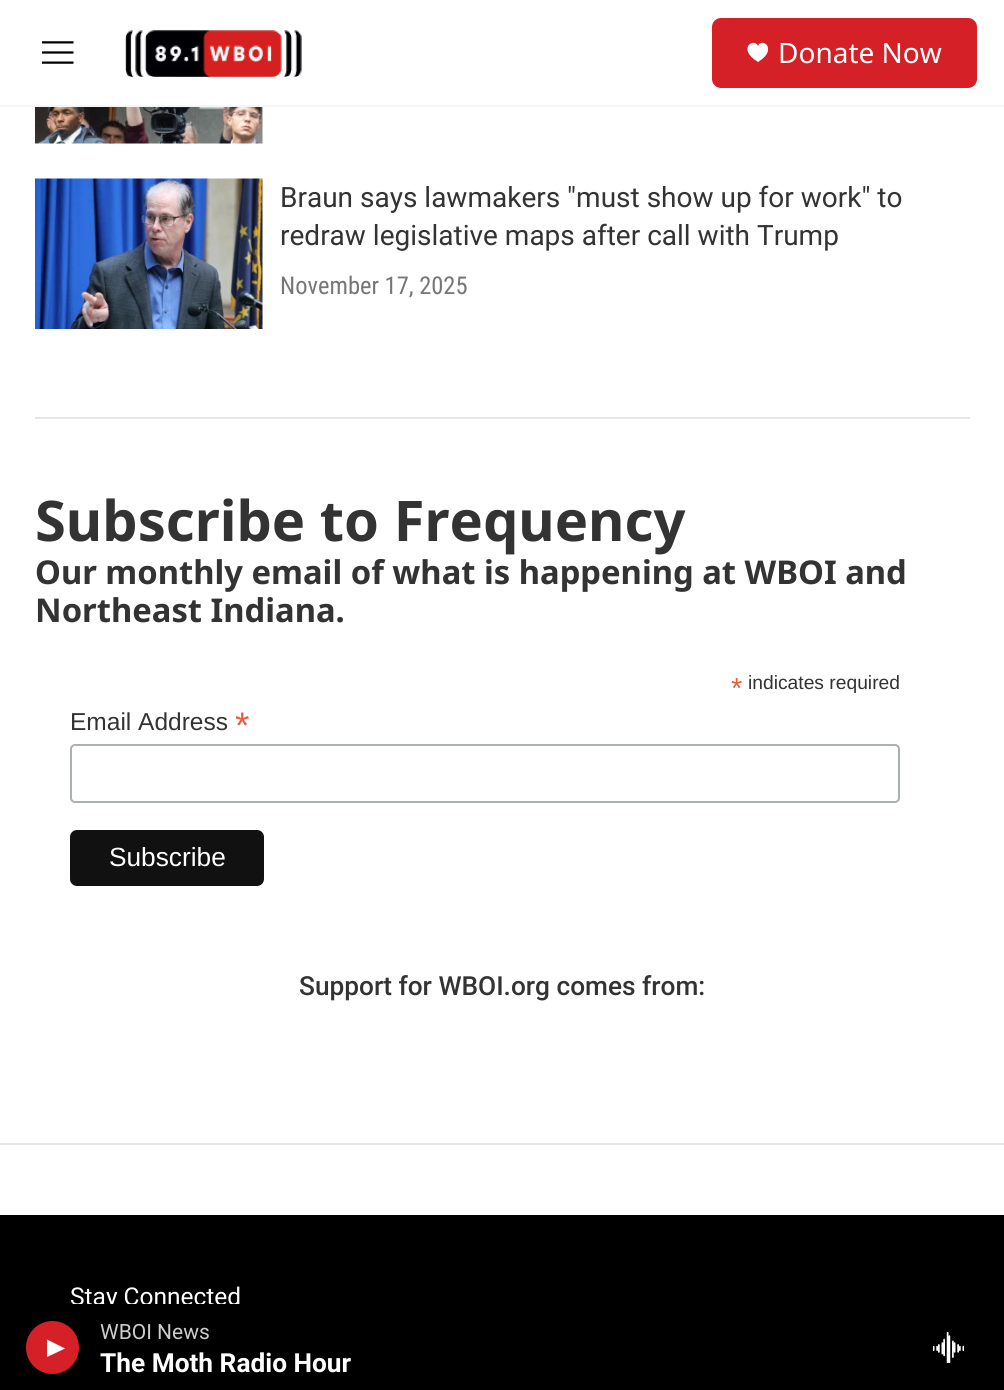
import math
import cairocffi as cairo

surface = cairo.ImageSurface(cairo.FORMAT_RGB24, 1004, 1390)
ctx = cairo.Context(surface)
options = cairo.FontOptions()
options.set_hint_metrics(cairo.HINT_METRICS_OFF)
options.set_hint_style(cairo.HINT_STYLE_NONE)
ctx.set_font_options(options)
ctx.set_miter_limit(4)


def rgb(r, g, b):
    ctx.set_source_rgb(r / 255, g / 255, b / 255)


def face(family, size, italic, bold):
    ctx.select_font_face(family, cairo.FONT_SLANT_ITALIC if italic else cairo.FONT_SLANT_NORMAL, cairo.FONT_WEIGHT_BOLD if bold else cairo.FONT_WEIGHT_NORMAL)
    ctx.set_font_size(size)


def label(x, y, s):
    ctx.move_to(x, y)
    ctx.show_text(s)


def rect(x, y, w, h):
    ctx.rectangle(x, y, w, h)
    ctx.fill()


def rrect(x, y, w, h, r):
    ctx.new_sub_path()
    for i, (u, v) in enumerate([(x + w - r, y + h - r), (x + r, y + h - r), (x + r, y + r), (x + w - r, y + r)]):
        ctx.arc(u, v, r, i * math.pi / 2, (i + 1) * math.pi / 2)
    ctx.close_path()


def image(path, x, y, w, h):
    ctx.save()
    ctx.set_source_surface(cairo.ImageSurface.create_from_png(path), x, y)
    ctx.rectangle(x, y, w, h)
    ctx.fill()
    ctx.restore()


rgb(255, 255, 255)
ctx.paint()
rgb(245, 245, 245)
rect(0, 105, 1004, 2)
image('image0.png', 42, 41, 32, 23)
image('image1.png', 125, 30, 177, 47)
rgb(214, 32, 39)
rrect(712, 18, 265, 70, 9)
ctx.fill()
ctx.save()
ctx.rectangle(747, 42, 21, 21)
ctx.clip()
rgb(255, 255, 255)
ctx.new_path()
ctx.move_to(758, 46)
ctx.curve_to(754.5, 37, 736, 48.5, 758, 62)
ctx.curve_to(779.5, 48.5, 761, 37, 758, 46)
ctx.close_path()
ctx.fill()
ctx.restore()
face('Noto Sans', 28, 0, 0)
rgb(255, 255, 255)
label(778, 63, 'Donate Now')
rgb(0, 0, 0)
rect(0, 1215, 1004, 89)
face('Roboto', 24.5, 0, 0)
rgb(255, 255, 255)
label(70, 1305, 'Stay Connected')
rgb(0, 0, 0)
rect(0, 1304, 1004, 86)
rgb(214, 32, 39)
ctx.new_path()
ctx.arc(52.5, 1347.5, 26.5, 0, 2 * math.pi)
ctx.fill()
rgb(255, 255, 255)
ctx.new_path()
ctx.move_to(47, 1339.5)
ctx.line_to(65, 1348.5)
ctx.line_to(47, 1357)
ctx.close_path()
ctx.fill()
face('Roboto', 21, 0, 0)
rgb(204, 204, 204)
label(100, 1339, 'WBOI News')
face('Roboto', 26.25, 0, 1)
rgb(255, 255, 255)
label(100, 1372, 'The Moth Radio Hour')
image('image2.png', 933, 1332, 31, 31)
rgb(230, 230, 230)
rect(35, 417, 935, 2)
image('image3.png', 35, 107, 228, 37)
image('image4.png', 35, 178, 228, 151)
face('Roboto', 28, 0, 0)
rgb(51, 51, 51)
label(280, 207, 'Braun says lawmakers "must show up for work" to')
label(280, 245, 'redraw legislative maps after call with Trump')
face('Roboto Condensed', 24.5, 0, 0)
rgb(118, 118, 118)
label(280, 294, 'November 17, 2025')
face('Noto Sans', 56, 0, 1)
rgb(51, 51, 51)
label(35, 541, 'Subscribe to Frequency')
face('Noto Sans', 32.75, 0, 1)
label(35, 584, 'Our monthly email of what is happening at WBOI and')
label(35, 622, 'Northeast Indiana.')
face('Liberation Sans', 29, 0, 0)
rgb(232, 92, 65)
label(731, 698, '*')
face('Liberation Sans', 19.25, 0, 0)
rgb(51, 51, 51)
label(748, 689, 'indicates required')
face('Liberation Sans', 24.5, 0, 0)
label(70, 730, 'Email Address')
face('Liberation Sans', 37, 0, 0)
rgb(232, 92, 65)
label(235, 738, '*')
rrect(71, 745, 828, 57, 4)
rgb(171, 176, 178)
ctx.stroke()
rgb(17, 17, 17)
rrect(70, 830, 194, 56, 7)
ctx.fill()
face('Liberation Sans', 26.25, 0, 0)
rgb(255, 255, 255)
label(109, 866, 'Subscribe')
face('Roboto Medium', 26.25, 0, 0)
rgb(51, 51, 51)
label(299, 995, 'Support for WBOI.org comes from:')
rgb(230, 230, 230)
rect(0, 1143, 1004, 2)
surface.write_to_png('render.png')
